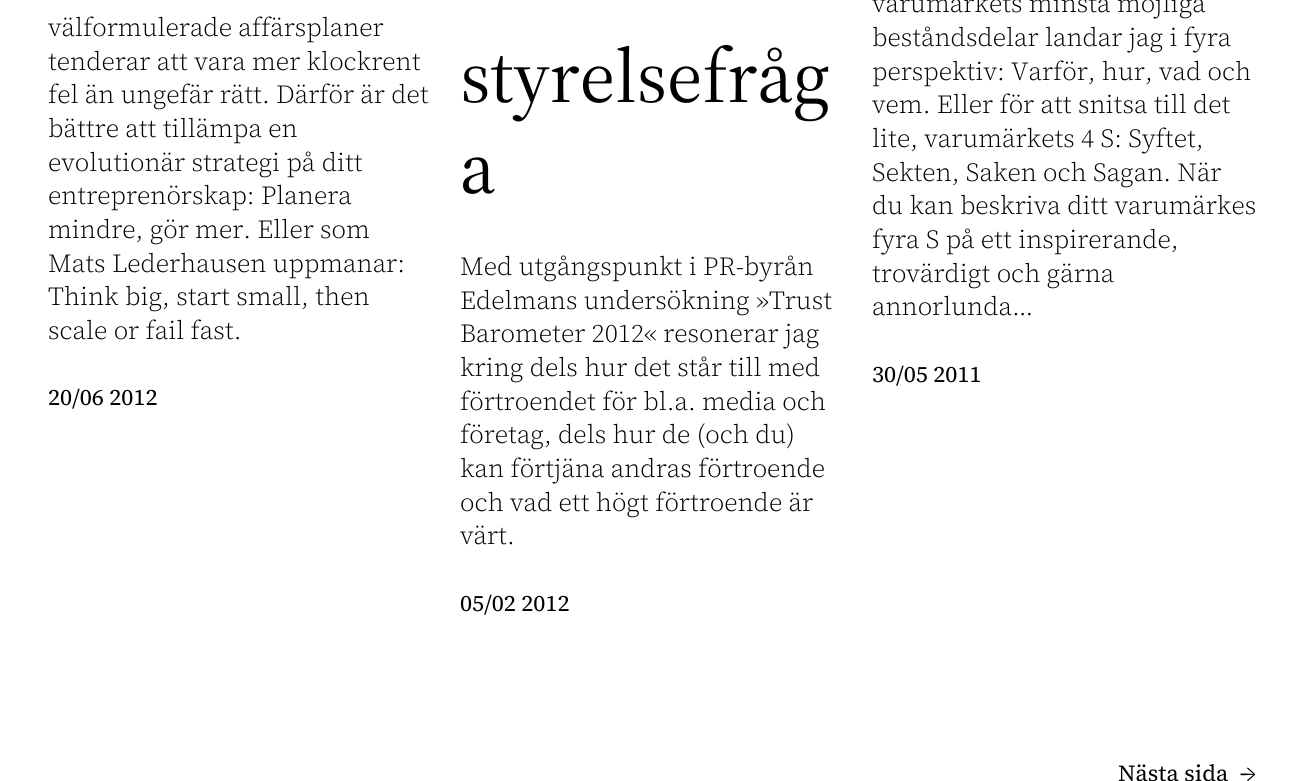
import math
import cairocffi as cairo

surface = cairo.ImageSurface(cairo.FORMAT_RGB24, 1303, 781)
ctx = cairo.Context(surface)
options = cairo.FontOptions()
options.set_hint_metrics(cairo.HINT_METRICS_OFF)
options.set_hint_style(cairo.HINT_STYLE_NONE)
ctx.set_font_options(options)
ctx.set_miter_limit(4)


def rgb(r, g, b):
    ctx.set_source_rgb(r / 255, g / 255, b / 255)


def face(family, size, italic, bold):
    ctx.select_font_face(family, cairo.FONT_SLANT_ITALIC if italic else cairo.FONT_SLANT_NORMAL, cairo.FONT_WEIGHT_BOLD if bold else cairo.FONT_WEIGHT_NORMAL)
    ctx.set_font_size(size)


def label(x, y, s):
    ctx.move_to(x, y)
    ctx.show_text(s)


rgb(255, 255, 255)
ctx.paint()
face('Source Serif 4 Light', 25.9, 0, 0)
rgb(0, 0, 0)
label(48, 36, 'välformulerade affärsplaner')
label(48, 70, 'tenderar att vara mer klockrent')
label(48, 103, 'fel än ungefär rätt. Därför är det')
label(48, 137, 'bättre att tillämpa en')
label(48, 171, 'evolutionär strategi på ditt')
label(48, 204, 'entreprenörskap: Planera')
label(48, 238, 'mindre, gör mer. Eller som')
label(48, 272, 'Mats Lederhausen uppmanar:')
label(48, 305, 'Think big, start small, then')
label(48, 339, 'scale or fail fast.')
face('Source Serif 4', 23, 0, 0)
label(48, 405, '20/06 2012')
face('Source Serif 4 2', 75.75, 0, 0)
label(460, 102, 'styrelsefråg')
label(460, 193, 'a')
face('Source Serif 4 Light', 25.9, 0, 0)
label(460, 275, 'Med utgångspunkt i PR-byrån')
label(460, 309, 'Edelmans undersökning »Trust')
label(460, 342, 'Barometer 2012« resonerar jag')
label(460, 376, 'kring dels hur det står till med')
label(460, 410, 'förtroendet för bl.a. media och')
label(460, 443, 'företag, dels hur de (och du)')
label(460, 477, 'kan förtjäna andras förtroende')
label(460, 511, 'och vad ett högt förtroende är')
label(460, 544, 'värt.')
face('Source Serif 4', 23, 0, 0)
label(460, 611, '05/02 2012')
face('Source Serif 4 Light', 25.9, 0, 0)
label(872, 12, 'varumärkets minsta möjliga')
label(872, 46, 'beståndsdelar landar jag i fyra')
label(872, 80, 'perspektiv: Varför, hur, vad och')
label(872, 113, 'vem. Eller för att snitsa till det')
label(872, 147, 'lite, varumärkets 4 S: Syftet,')
label(872, 181, 'Sekten, Saken och Sagan. När')
label(872, 214, 'du kan beskriva ditt varumärkes')
label(872, 248, 'fyra S på ett inspirerande,')
label(872, 282, 'trovärdigt och gärna')
label(872, 315, 'annorlunda…')
face('Source Serif 4', 23, 0, 0)
label(872, 382, '30/05 2011')
label(1118, 781, 'Nästa sida')
label(1240, 781, '→')
surface.write_to_png('render.png')
